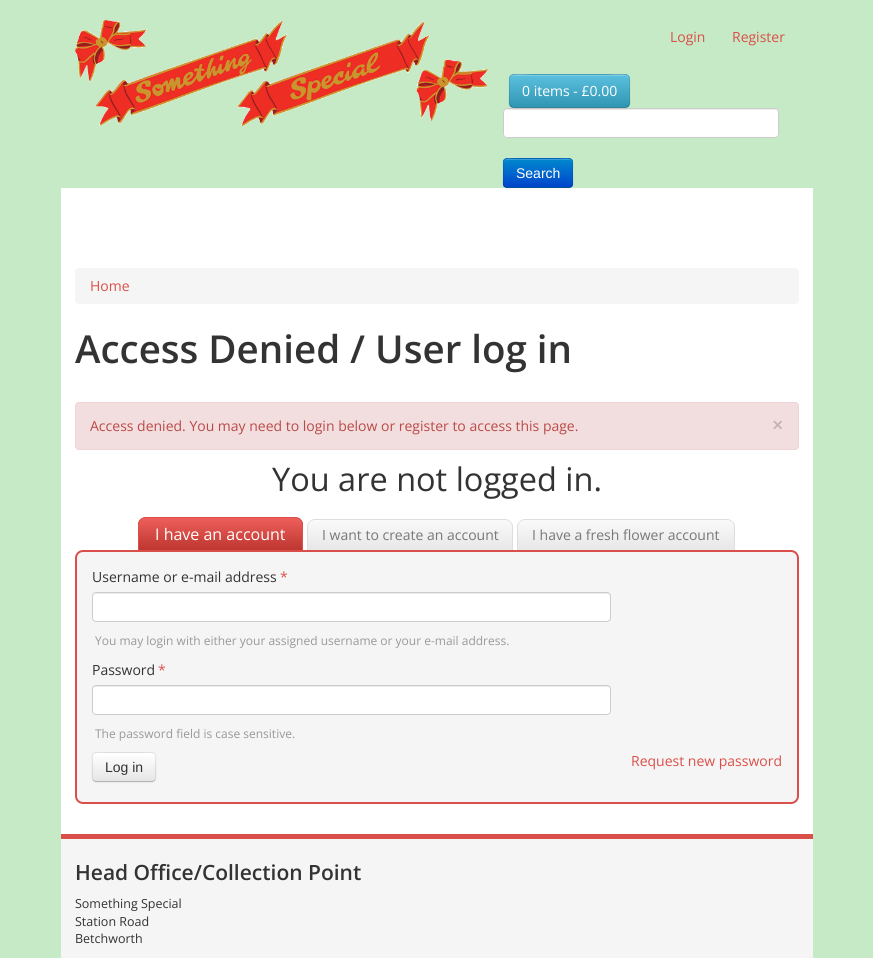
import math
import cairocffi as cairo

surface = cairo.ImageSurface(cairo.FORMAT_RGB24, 873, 958)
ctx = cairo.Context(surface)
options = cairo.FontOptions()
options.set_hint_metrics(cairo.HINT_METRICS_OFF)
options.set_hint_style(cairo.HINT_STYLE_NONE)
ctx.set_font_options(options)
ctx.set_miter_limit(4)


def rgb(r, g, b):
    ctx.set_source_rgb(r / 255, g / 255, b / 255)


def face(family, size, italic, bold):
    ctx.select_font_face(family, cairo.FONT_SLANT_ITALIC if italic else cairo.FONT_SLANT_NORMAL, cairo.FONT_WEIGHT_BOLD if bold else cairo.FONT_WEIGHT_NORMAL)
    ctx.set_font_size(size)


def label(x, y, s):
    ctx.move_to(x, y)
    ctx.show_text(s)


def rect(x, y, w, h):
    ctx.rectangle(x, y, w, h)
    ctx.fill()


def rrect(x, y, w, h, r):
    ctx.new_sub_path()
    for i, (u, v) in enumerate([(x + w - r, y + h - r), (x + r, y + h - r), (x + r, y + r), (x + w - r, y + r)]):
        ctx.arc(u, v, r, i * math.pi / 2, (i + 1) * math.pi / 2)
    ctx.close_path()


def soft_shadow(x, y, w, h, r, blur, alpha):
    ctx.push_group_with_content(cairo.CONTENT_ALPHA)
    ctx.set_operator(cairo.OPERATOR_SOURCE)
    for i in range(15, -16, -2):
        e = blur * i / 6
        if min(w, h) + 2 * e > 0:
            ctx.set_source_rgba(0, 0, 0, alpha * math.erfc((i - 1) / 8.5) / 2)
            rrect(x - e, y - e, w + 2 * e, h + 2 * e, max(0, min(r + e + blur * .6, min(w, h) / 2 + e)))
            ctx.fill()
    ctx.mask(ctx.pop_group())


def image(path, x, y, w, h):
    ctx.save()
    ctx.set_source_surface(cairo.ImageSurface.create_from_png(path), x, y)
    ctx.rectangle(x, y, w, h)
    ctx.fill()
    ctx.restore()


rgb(198, 233, 198)
ctx.paint()
image('image0.png', 75, 20, 413, 106)
face('Open Sans', 14, 0, 0)
rgb(218, 79, 73)
label(670, 42, 'Login')
label(732, 42, 'Register')
rgb(255, 255, 255)
rrect(503, 108, 276, 30, 4)
ctx.fill()
rgb(236, 236, 236)
ctx.new_path()
ctx.move_to(507, 110)
ctx.line_to(775, 110)
ctx.curve_to(777, 110, 778, 111, 778, 113)
ctx.line_to(778, 112)
ctx.curve_to(778, 110, 777, 109, 775, 109)
ctx.line_to(507, 109)
ctx.curve_to(505, 109, 504, 110, 504, 112)
ctx.line_to(504, 113)
ctx.curve_to(504, 111, 505, 110, 507, 110)
ctx.close_path()
ctx.fill()
rrect(503.5, 108.5, 275, 29, 3.5)
rgb(204, 204, 204)
ctx.set_line_width(1)
ctx.stroke()
rgb(0, 0, 0)
soft_shadow(509, 75, 121, 34, 5, 1, 0.05)
rgb(73, 175, 205)
rrect(509, 74, 121, 34, 5)
ctx.fill()
ctx.save()
rrect(509, 74, 121, 34, 5)
ctx.clip()
gradient = cairo.LinearGradient(570, 75, 570, 107)
gradient.add_color_stop_rgba(0, 0.357, 0.753, 0.871, 1)
gradient.add_color_stop_rgba(1, 0.184, 0.588, 0.706, 1)
ctx.set_source(gradient)
rect(509, 75, 121, 32)
ctx.restore()
ctx.set_source_rgba(1, 1, 1, 0.2)
ctx.new_path()
ctx.move_to(514, 76)
ctx.line_to(625, 76)
ctx.curve_to(627, 76, 629, 78, 629, 80)
ctx.curve_to(629, 70, 610, 75, 606, 75)
ctx.line_to(532, 75)
ctx.curve_to(529, 75, 510, 70, 510, 80)
ctx.curve_to(510, 78, 512, 76, 514, 76)
ctx.close_path()
ctx.fill()
ctx.new_path()
ctx.move_to(628, 106)
ctx.curve_to(627.5, 107, 626, 107.5, 625, 107.5)
ctx.line_to(514, 107.5)
ctx.curve_to(513, 107.5, 511.5, 107, 511, 106)
ctx.set_source_rgba(0, 0, 0, 0.25)
ctx.stroke()
ctx.new_path()
ctx.move_to(511, 106)
ctx.curve_to(508, 103.5, 509.5, 98, 509.5, 95)
ctx.curve_to(509.5, 70.5, 506, 74.5, 532.5, 74.5)
ctx.line_to(606.5, 74.5)
ctx.curve_to(633, 74.5, 629.5, 70.5, 629.5, 95)
ctx.curve_to(629.5, 98, 631, 103.5, 628, 106)
ctx.set_source_rgba(0, 0, 0, 0.1)
ctx.stroke()
rgb(255, 255, 255)
label(522, 96, '0 items - £0.00')
rect(61, 188, 752, 646)
rgb(0, 0, 0)
soft_shadow(503, 159, 70, 30, 4, 1, 0.05)
rgb(0, 109, 204)
rrect(503, 158, 70, 30, 4)
ctx.fill()
ctx.save()
rrect(503, 158, 70, 30, 4)
ctx.clip()
gradient = cairo.LinearGradient(538, 159, 538, 187)
gradient.add_color_stop_rgba(0, 0, 0.533, 0.8, 1)
gradient.add_color_stop_rgba(1, 0, 0.267, 0.8, 1)
ctx.set_source(gradient)
rect(503, 159, 70, 28)
ctx.restore()
ctx.set_source_rgba(1, 1, 1, 0.2)
ctx.new_path()
ctx.move_to(507, 160)
ctx.line_to(569, 160)
ctx.curve_to(571, 160, 572, 161, 572, 163)
ctx.curve_to(572, 156, 563, 159, 559, 159)
ctx.line_to(517, 159)
ctx.curve_to(513, 159, 504, 156, 504, 163)
ctx.curve_to(504, 161, 505, 160, 507, 160)
ctx.close_path()
ctx.fill()
ctx.new_path()
ctx.move_to(571.5, 186.5)
ctx.line_to(569.5, 187.5)
ctx.line_to(506.5, 187.5)
ctx.line_to(504.5, 186.5)
ctx.set_source_rgba(0, 0, 0, 0.25)
ctx.stroke()
ctx.new_path()
ctx.move_to(504.5, 186.5)
ctx.curve_to(502.5, 184.5, 503.5, 176, 503.5, 173)
ctx.curve_to(503.5, 157, 501, 158.5, 517.5, 158.5)
ctx.line_to(558.5, 158.5)
ctx.curve_to(575, 158.5, 572.5, 157, 572.5, 173)
ctx.curve_to(572.5, 176, 573.5, 184.5, 571.5, 186.5)
ctx.set_source_rgba(0, 0, 0, 0.1)
ctx.stroke()
face('Liberation Sans', 14, 0, 0)
rgb(255, 255, 255)
label(516, 178, 'Search')
rgb(245, 245, 245)
rrect(75, 268, 724, 36, 4)
ctx.fill()
face('Open Sans', 14, 0, 0)
rgb(218, 79, 73)
label(90, 291, 'Home')
face('Open Sans SemiBold', 38.5, 0, 0)
rgb(51, 51, 51)
label(75, 363, 'Access Denied / User log in')
rgb(242, 222, 222)
rrect(75.5, 402.5, 723, 47, 3.5)
ctx.fill_preserve()
rgb(238, 211, 215)
ctx.stroke()
face('Open Sans', 14, 0, 0)
rgb(185, 74, 72)
label(90, 431, 'Access denied. You may need to login below or register to access this page.')
face('Open Sans SemiBold', 20, 0, 0)
rgb(194, 178, 178)
label(772, 432, '×')
face('Open Sans', 32.5, 0, 0)
rgb(51, 51, 51)
label(272, 491, 'You are not logged in.')
rgb(218, 79, 73)
ctx.new_path()
ctx.move_to(146, 517)
ctx.line_to(295, 517)
ctx.curve_to(299.5, 517, 303, 520.5, 303, 525)
ctx.line_to(303, 550)
ctx.line_to(138, 550)
ctx.line_to(138, 525)
ctx.curve_to(138, 520.5, 141.5, 517, 146, 517)
ctx.close_path()
ctx.fill()
ctx.save()
ctx.new_path()
ctx.move_to(146, 517)
ctx.line_to(295, 517)
ctx.curve_to(299.5, 517, 303, 520.5, 303, 525)
ctx.line_to(303, 550)
ctx.line_to(138, 550)
ctx.line_to(138, 525)
ctx.curve_to(138, 520.5, 141.5, 517, 146, 517)
ctx.close_path()
ctx.clip()
gradient = cairo.LinearGradient(221, 518, 221, 550)
gradient.add_color_stop_rgba(0, 0.933, 0.373, 0.357, 1)
gradient.add_color_stop_rgba(1, 0.741, 0.212, 0.184, 1)
ctx.set_source(gradient)
rect(138, 518, 165, 32)
ctx.restore()
ctx.set_fill_rule(cairo.FILL_RULE_EVEN_ODD)
ctx.new_path()
ctx.move_to(146, 517)
ctx.line_to(295, 517)
ctx.curve_to(299, 517, 303, 521, 303, 525)
ctx.line_to(303, 550)
ctx.line_to(138, 550)
ctx.line_to(138, 525)
ctx.curve_to(138, 521, 142, 517, 146, 517)
ctx.close_path()
ctx.move_to(146, 518)
ctx.line_to(295, 518)
ctx.curve_to(299, 518, 302, 521, 302, 525)
ctx.line_to(302, 550)
ctx.line_to(139, 550)
ctx.line_to(139, 525)
ctx.curve_to(139, 521, 142, 518, 146, 518)
ctx.close_path()
ctx.fill()
face('Open Sans', 16, 0, 0)
rgb(255, 255, 255)
label(155, 540, 'I have an account')
rgb(250, 250, 250)
ctx.new_path()
ctx.move_to(315, 519)
ctx.line_to(505, 519)
ctx.curve_to(509.5, 519, 513, 522.5, 513, 527)
ctx.line_to(513, 550)
ctx.line_to(307, 550)
ctx.line_to(307, 527)
ctx.curve_to(307, 522.5, 310.5, 519, 315, 519)
ctx.close_path()
ctx.fill()
ctx.save()
ctx.set_fill_rule(cairo.FILL_RULE_WINDING)
ctx.new_path()
ctx.move_to(315, 519)
ctx.line_to(505, 519)
ctx.curve_to(509.5, 519, 513, 522.5, 513, 527)
ctx.line_to(513, 550)
ctx.line_to(307, 550)
ctx.line_to(307, 527)
ctx.curve_to(307, 522.5, 310.5, 519, 315, 519)
ctx.close_path()
ctx.clip()
gradient = cairo.LinearGradient(410, 520, 410, 550)
gradient.add_color_stop_rgba(0, 0.98, 0.98, 0.98, 1)
gradient.add_color_stop_rgba(1, 0.906, 0.906, 0.906, 1)
ctx.set_source(gradient)
rect(307, 520, 206, 30)
ctx.restore()
rgb(221, 221, 221)
ctx.new_path()
ctx.move_to(315, 519)
ctx.line_to(505, 519)
ctx.curve_to(509, 519, 513, 523, 513, 527)
ctx.line_to(513, 550)
ctx.line_to(307, 550)
ctx.line_to(307, 527)
ctx.curve_to(307, 523, 311, 519, 315, 519)
ctx.close_path()
ctx.move_to(315, 520)
ctx.line_to(505, 520)
ctx.curve_to(509, 520, 512, 523, 512, 527)
ctx.line_to(512, 550)
ctx.line_to(308, 550)
ctx.line_to(308, 527)
ctx.curve_to(308, 523, 311, 520, 315, 520)
ctx.close_path()
ctx.fill()
face('Open Sans', 14, 0, 0)
rgb(119, 119, 119)
label(322, 540, 'I want to create an account')
rgb(250, 250, 250)
ctx.new_path()
ctx.move_to(525, 519)
ctx.line_to(727, 519)
ctx.curve_to(731.5, 519, 735, 522.5, 735, 527)
ctx.line_to(735, 550)
ctx.line_to(517, 550)
ctx.line_to(517, 527)
ctx.curve_to(517, 522.5, 520.5, 519, 525, 519)
ctx.close_path()
ctx.fill()
ctx.save()
ctx.set_fill_rule(cairo.FILL_RULE_WINDING)
ctx.new_path()
ctx.move_to(525, 519)
ctx.line_to(727, 519)
ctx.curve_to(731.5, 519, 735, 522.5, 735, 527)
ctx.line_to(735, 550)
ctx.line_to(517, 550)
ctx.line_to(517, 527)
ctx.curve_to(517, 522.5, 520.5, 519, 525, 519)
ctx.close_path()
ctx.clip()
gradient = cairo.LinearGradient(626, 520, 626, 550)
gradient.add_color_stop_rgba(0, 0.98, 0.98, 0.98, 1)
gradient.add_color_stop_rgba(1, 0.906, 0.906, 0.906, 1)
ctx.set_source(gradient)
rect(517, 520, 218, 30)
ctx.restore()
rgb(221, 221, 221)
ctx.new_path()
ctx.move_to(525, 519)
ctx.line_to(727, 519)
ctx.curve_to(731, 519, 735, 523, 735, 527)
ctx.line_to(735, 550)
ctx.line_to(517, 550)
ctx.line_to(517, 527)
ctx.curve_to(517, 523, 521, 519, 525, 519)
ctx.close_path()
ctx.move_to(525, 520)
ctx.line_to(727, 520)
ctx.curve_to(731, 520, 734, 523, 734, 527)
ctx.line_to(734, 550)
ctx.line_to(518, 550)
ctx.line_to(518, 527)
ctx.curve_to(518, 523, 521, 520, 525, 520)
ctx.close_path()
ctx.fill()
rgb(119, 119, 119)
label(532, 540, 'I have a fresh flower account')
rgb(245, 245, 245)
rrect(76, 551, 722, 252, 7)
ctx.fill_preserve()
rgb(218, 79, 73)
ctx.set_line_width(2)
ctx.stroke()
rgb(51, 51, 51)
label(92, 582, 'Username or e-mail address')
rgb(218, 79, 73)
label(280, 582, '*')
rgb(255, 255, 255)
rrect(92, 592, 519, 30, 4)
ctx.fill()
rgb(236, 236, 236)
ctx.set_fill_rule(cairo.FILL_RULE_WINDING)
ctx.new_path()
ctx.move_to(96, 594)
ctx.line_to(607, 594)
ctx.curve_to(609, 594, 610, 595, 610, 597)
ctx.line_to(610, 595)
ctx.line_to(608, 593)
ctx.line_to(96, 593)
ctx.curve_to(94, 593, 93, 595, 93, 597)
ctx.curve_to(93, 595, 94, 594, 96, 594)
ctx.close_path()
ctx.fill()
rrect(92.5, 592.5, 518, 29, 3.5)
rgb(204, 204, 204)
ctx.set_line_width(1)
ctx.stroke()
face('Open Sans', 12, 0, 0)
rgb(153, 153, 153)
label(95, 645, 'You may login with either your assigned username or your e-mail address.')
face('Open Sans', 14, 0, 0)
rgb(51, 51, 51)
label(92, 675, 'Password')
rgb(218, 79, 73)
label(158, 675, '*')
rgb(255, 255, 255)
rrect(92, 685, 519, 30, 4)
ctx.fill()
rgb(236, 236, 236)
ctx.new_path()
ctx.move_to(96, 687)
ctx.line_to(607, 687)
ctx.curve_to(609, 687, 610, 688, 610, 690)
ctx.line_to(610, 688)
ctx.line_to(608, 686)
ctx.line_to(96, 686)
ctx.curve_to(94, 686, 93, 688, 93, 690)
ctx.curve_to(93, 688, 94, 687, 96, 687)
ctx.close_path()
ctx.fill()
rrect(92.5, 685.5, 518, 29, 3.5)
rgb(204, 204, 204)
ctx.stroke()
face('Open Sans', 12, 0, 0)
rgb(153, 153, 153)
label(95, 738, 'The password field is case sensitive.')
rgb(0, 0, 0)
soft_shadow(92, 753, 64, 30, 4, 1, 0.05)
rgb(245, 245, 245)
rrect(92, 752, 64, 30, 4)
ctx.fill()
ctx.save()
rrect(92, 752, 64, 30, 4)
ctx.clip()
gradient = cairo.LinearGradient(124, 753, 124, 781)
gradient.add_color_stop_rgba(0, 1, 1, 1, 1)
gradient.add_color_stop_rgba(1, 0.902, 0.902, 0.902, 1)
ctx.set_source(gradient)
rect(92, 753, 64, 28)
ctx.restore()
rgb(255, 255, 255)
ctx.new_path()
ctx.move_to(96, 754)
ctx.line_to(152, 754)
ctx.curve_to(154, 754, 155, 755, 155, 757)
ctx.curve_to(155, 751, 147, 753, 143, 753)
ctx.line_to(105, 753)
ctx.curve_to(101, 753, 93, 751, 93, 757)
ctx.curve_to(93, 755, 94, 754, 96, 754)
ctx.close_path()
ctx.fill()
ctx.new_path()
ctx.move_to(154.5, 780.5)
ctx.line_to(152.5, 781.5)
ctx.line_to(95.5, 781.5)
ctx.line_to(93.5, 780.5)
rgb(179, 179, 179)
ctx.stroke()
ctx.new_path()
ctx.move_to(93.5, 780.5)
ctx.curve_to(91.5, 778.5, 92.5, 770, 92.5, 767)
ctx.curve_to(92.5, 751.5, 90, 752.5, 105.5, 752.5)
ctx.line_to(142.5, 752.5)
ctx.curve_to(158, 752.5, 155.5, 751.5, 155.5, 767)
ctx.curve_to(155.5, 770, 156.5, 778.5, 154.5, 780.5)
ctx.set_source_rgba(0, 0, 0, 0.1)
ctx.stroke()
face('Liberation Sans', 14, 0, 0)
rgb(51, 51, 51)
label(105, 772, 'Log in')
face('Open Sans', 14, 0, 0)
rgb(218, 79, 73)
label(631, 766, 'Request new password')
rgb(245, 245, 245)
rect(61, 839, 752, 119)
rgb(218, 79, 73)
rect(61, 834, 752, 5)
face('Open Sans SemiBold', 21, 0, 0)
rgb(51, 51, 51)
label(75, 880, 'Head Office/Collection Point')
face('Open Sans', 12.5, 0, 0)
label(75, 908, 'Something Special')
label(75, 926, 'Station Road')
label(75, 943, 'Betchworth')
surface.write_to_png('render.png')
